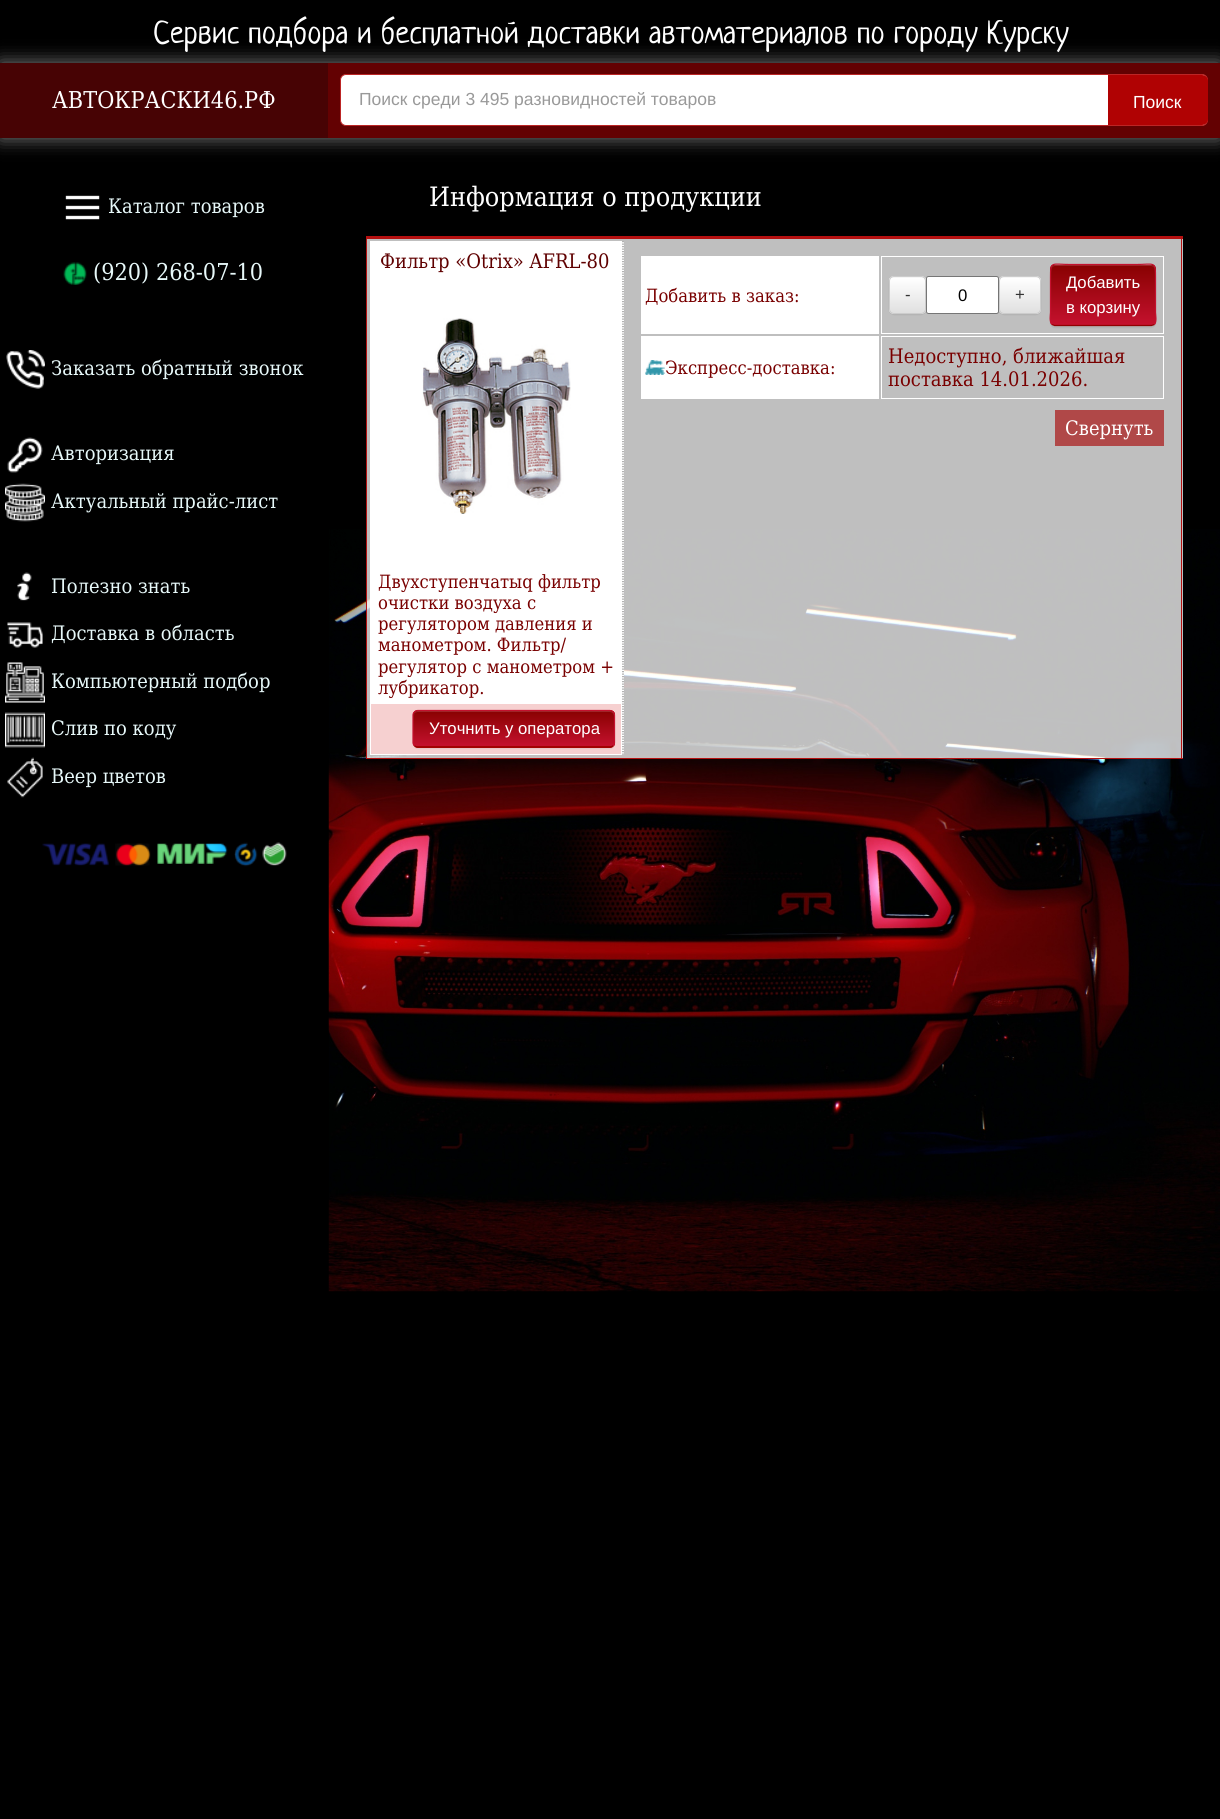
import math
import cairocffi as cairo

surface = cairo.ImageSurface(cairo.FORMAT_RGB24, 1220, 1819)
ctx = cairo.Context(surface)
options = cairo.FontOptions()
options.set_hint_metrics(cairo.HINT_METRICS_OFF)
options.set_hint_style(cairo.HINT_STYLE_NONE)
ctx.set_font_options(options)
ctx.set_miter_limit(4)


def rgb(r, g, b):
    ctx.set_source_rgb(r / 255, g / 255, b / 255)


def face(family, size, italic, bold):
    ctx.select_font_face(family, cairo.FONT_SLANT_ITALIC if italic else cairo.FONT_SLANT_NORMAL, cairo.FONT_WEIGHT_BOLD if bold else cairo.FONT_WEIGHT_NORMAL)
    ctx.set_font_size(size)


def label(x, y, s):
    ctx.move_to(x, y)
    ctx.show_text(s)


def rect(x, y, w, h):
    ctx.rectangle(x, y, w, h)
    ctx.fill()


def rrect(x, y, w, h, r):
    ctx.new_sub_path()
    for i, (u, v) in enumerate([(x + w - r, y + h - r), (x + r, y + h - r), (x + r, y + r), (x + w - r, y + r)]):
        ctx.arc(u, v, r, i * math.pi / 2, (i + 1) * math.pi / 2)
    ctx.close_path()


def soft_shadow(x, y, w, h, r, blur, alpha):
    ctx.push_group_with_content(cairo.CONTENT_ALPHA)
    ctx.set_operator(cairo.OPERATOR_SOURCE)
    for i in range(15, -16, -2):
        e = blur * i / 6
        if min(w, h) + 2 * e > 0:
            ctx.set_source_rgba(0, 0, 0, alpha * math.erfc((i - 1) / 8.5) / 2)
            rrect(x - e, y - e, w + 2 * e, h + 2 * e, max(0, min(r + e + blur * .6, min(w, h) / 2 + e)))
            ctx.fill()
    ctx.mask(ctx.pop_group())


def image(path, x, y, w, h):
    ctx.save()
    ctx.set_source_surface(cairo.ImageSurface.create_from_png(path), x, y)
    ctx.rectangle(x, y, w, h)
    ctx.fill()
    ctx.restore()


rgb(0, 0, 0)
ctx.paint()
face('Neucha', 31.7, 0, 0)
rgb(255, 255, 255)
label(153, 43, 'Сервис подбора и бесплатной доставки автоматериалов по городу Курску')
rgb(255, 255, 255)
soft_shadow(0, 63, 1220, 75, 0, 9.5, 0.5)
rgb(99, 1, 2)
rect(328, 63, 892, 75)
rgb(71, 3, 4)
rect(0, 63, 328, 75)
face('DejaVu Serif', 23.25, 0, 0)
rgb(255, 255, 255)
label(52, 108, 'АВТОКРАСКИ46.РФ')
rrect(340.5, 74.5, 867, 51, 5.5)
ctx.fill_preserve()
rgb(188, 37, 37)
ctx.set_line_width(1)
ctx.stroke()
face('Liberation Sans', 17.5, 0, 0)
rgb(153, 153, 153)
label(359, 105, 'Поиск среди 3 495 разновидностей товаров')
rgb(176, 2, 3)
ctx.new_path()
ctx.move_to(1108, 75)
ctx.line_to(1202, 75)
ctx.curve_to(1205.5, 75, 1208, 77.5, 1208, 81)
ctx.line_to(1208, 119)
ctx.curve_to(1208, 122.5, 1205.5, 125, 1202, 125)
ctx.line_to(1108, 125)
ctx.close_path()
ctx.fill()
rgb(255, 255, 255)
label(1133, 108, 'Поиск')
image('image0.png', 65, 195, 35, 25)
face('DejaVu Serif', 20, 0, 0)
rgb(231, 248, 249)
label(108, 213, 'Каталог товаров')
image('image1.png', 63, 262, 24, 23)
face('DejaVu Serif', 23.25, 0, 0)
label(93, 280, '(920) 268-07-10')
image('image2.png', 6, 350, 39, 39)
face('DejaVu Serif', 20, 0, 0)
label(51, 375, 'Заказать обратный звонок')
image('image3.png', 7, 437, 36, 36)
label(51, 460, 'Авторизация')
image('image4.png', 5, 483, 40, 39)
label(51, 508, 'Актуальный прайс-лист')
image('image5.png', 17, 572, 15, 29)
label(51, 593, 'Полезно знать')
image('image6.png', 7, 622, 36, 26)
label(51, 640, 'Доставка в область')
image('image7.png', 5, 662, 40, 41)
label(51, 688, 'Компьютерный подбор')
image('image8.png', 5, 712, 40, 36)
label(51, 735, 'Слив по коду')
image('image9.png', 7, 757, 36, 41)
label(51, 783, 'Веер цветов')
image('image10.png', 42, 843, 67, 23)
image('image11.png', 115, 843, 36, 23)
image('image12.png', 157, 843, 71, 21)
image('image13.png', 234, 842, 24, 25)
image('image14.png', 262, 842, 25, 24)
image('image15.png', 328, 529, 892, 763)
face('DejaVu Serif', 26.75, 0, 0)
rgb(255, 255, 255)
label(429, 206, 'Информация о продукции')
ctx.set_source_rgba(1, 1, 1, 0.75)
rect(367, 239, 816, 519)
rgb(181, 16, 16)
rect(366, 236, 817, 3)
rect(1181, 236, 1, 523)
rect(366, 758, 817, 1)
rect(366, 236, 1, 523)
rgb(255, 255, 255)
rect(370, 241, 254, 514)
ctx.new_path()
ctx.move_to(623, 241)
ctx.line_to(623, 755)
rgb(128, 128, 128)
ctx.set_line_width(1.2)
ctx.set_dash([1.25, 1.25])
ctx.stroke()
face('DejaVu Serif', 20, 0, 0)
rgb(95, 0, 0)
label(380, 268, 'Фильтр «Otrix» AFRL-80')
image('image16.png', 422, 318, 149, 196)
face('DejaVu Serif', 18.3, 0, 0)
rgb(121, 0, 0)
label(378, 588, 'Двухступенчатыq фильтр')
label(378, 609, 'очистки воздуха с')
label(378, 630, 'регулятором давления и')
label(378, 651, 'манометром. Фильтр/')
label(378, 673, 'регулятор с манометром +')
label(378, 694, 'лубрикатор.')
rgb(246, 208, 208)
rect(371, 704, 250, 50)
rgb(0, 0, 0)
soft_shadow(413, 711, 202, 38, 5, 0.5, 0.07)
rgb(188, 2, 3)
rrect(413, 710, 202, 38, 5)
ctx.fill()
ctx.save()
rrect(413, 710, 202, 38, 5)
ctx.clip()
gradient = cairo.LinearGradient(514, 711, 514, 746)
gradient.add_color_stop_rgba(0, 0.537, 0.004, 0.004, 1)
gradient.add_color_stop_rgba(1, 0.769, 0.067, 0.18, 1)
ctx.set_source(gradient)
rect(413, 711, 202, 35)
ctx.restore()
ctx.set_source_rgba(1, 1, 1, 0.15)
ctx.new_path()
ctx.move_to(418, 712)
ctx.line_to(610, 712)
ctx.curve_to(612, 712, 614, 714, 614, 716)
ctx.line_to(614, 715)
ctx.curve_to(614, 713, 612, 711, 610, 711)
ctx.line_to(418, 711)
ctx.curve_to(416, 711, 414, 713, 414, 715)
ctx.line_to(414, 716)
ctx.curve_to(414, 714, 415, 712, 418, 712)
ctx.close_path()
ctx.fill()
ctx.new_path()
ctx.move_to(613, 745.5)
ctx.curve_to(612.5, 746.5, 611, 747, 610, 747)
ctx.line_to(417.5, 747)
ctx.curve_to(416.5, 747, 415, 746.5, 414.5, 745.5)
rgb(145, 1, 1)
ctx.set_dash([])
ctx.stroke()
ctx.new_path()
ctx.move_to(414.5, 745.5)
ctx.curve_to(413.5, 745, 413, 743.5, 413, 742.5)
ctx.line_to(413, 715)
ctx.curve_to(413, 714, 413.5, 712.5, 414.5, 712)
ctx.curve_to(415, 711, 416.5, 710.5, 417.5, 710.5)
ctx.line_to(610, 710.5)
ctx.curve_to(611, 710.5, 612.5, 711, 613, 712)
ctx.curve_to(614, 712.5, 614.5, 714, 614.5, 715)
ctx.line_to(614.5, 742.5)
ctx.curve_to(614.5, 743.5, 614, 745, 613, 745.5)
rgb(196, 17, 46)
ctx.stroke()
face('Liberation Sans', 16.75, 0, 0)
rgb(255, 255, 255)
label(429, 734, 'Уточнить у оператора')
rect(641, 256, 238, 78)
face('DejaVu Serif', 18.3, 0, 0)
rgb(121, 0, 0)
label(645, 302, 'Добавить в заказ:')
ctx.rectangle(881.5, 256.5, 282, 77)
rgb(255, 255, 255)
ctx.set_line_width(1)
ctx.stroke()
rgb(0, 0, 0)
soft_shadow(889, 278, 37, 37, 5, 0.5, 0.07)
rgb(245, 245, 245)
rrect(889, 276, 37, 38, 5)
ctx.fill()
ctx.save()
rrect(889, 276, 37, 38, 5)
ctx.clip()
gradient = cairo.LinearGradient(908, 278, 908, 313)
gradient.add_color_stop_rgba(0, 1, 1, 1, 1)
gradient.add_color_stop_rgba(1, 0.878, 0.878, 0.878, 1)
ctx.set_source(gradient)
rect(889, 278, 37, 35)
ctx.restore()
rrect(889.5, 276.5, 36, 37, 4.5)
rgb(204, 204, 204)
ctx.stroke()
face('Liberation Sans', 16.75, 0, 0)
rgb(51, 51, 51)
label(905, 300, '-')
rgb(255, 255, 255)
rrect(926.5, 276.5, 72, 37, 2)
ctx.fill_preserve()
rgb(118, 118, 118)
ctx.stroke()
rgb(0, 0, 0)
label(958, 301, '0')
rgb(0, 0, 0)
soft_shadow(999, 278, 42, 37, 5, 0.5, 0.07)
rgb(245, 245, 245)
rrect(999, 276, 42, 38, 5)
ctx.fill()
ctx.save()
rrect(999, 276, 42, 38, 5)
ctx.clip()
gradient = cairo.LinearGradient(1020, 278, 1020, 313)
gradient.add_color_stop_rgba(0, 1, 1, 1, 1)
gradient.add_color_stop_rgba(1, 0.878, 0.878, 0.878, 1)
ctx.set_source(gradient)
rect(999, 278, 42, 35)
ctx.restore()
rrect(999.5, 276.5, 41, 37, 4.5)
rgb(204, 204, 204)
ctx.stroke()
rgb(51, 51, 51)
label(1015, 300, '+')
rgb(0, 0, 0)
soft_shadow(1050, 265, 106, 63, 5, 0.5, 0.07)
ctx.save()
rrect(1050, 264, 106, 62, 5)
ctx.clip()
gradient = cairo.LinearGradient(1103, 265, 1103, 325)
gradient.add_color_stop_rgba(0, 0.537, 0.004, 0.004, 1)
gradient.add_color_stop_rgba(1, 0.769, 0.067, 0.18, 1)
ctx.set_source(gradient)
rect(1050, 265, 106, 60)
ctx.restore()
ctx.set_source_rgba(1, 1, 1, 0.15)
ctx.new_path()
ctx.move_to(1055, 266)
ctx.line_to(1151, 266)
ctx.curve_to(1153, 266, 1155, 268, 1155, 270)
ctx.curve_to(1155, 261, 1139, 265, 1135, 265)
ctx.line_to(1071, 265)
ctx.curve_to(1067, 265, 1051, 261, 1051, 270)
ctx.curve_to(1051, 268, 1053, 266, 1055, 266)
ctx.close_path()
ctx.fill()
ctx.new_path()
ctx.move_to(1154.5, 324.5)
ctx.line_to(1151.5, 325.5)
ctx.line_to(1054.5, 325.5)
ctx.line_to(1052, 324.5)
rgb(145, 1, 1)
ctx.set_line_width(1.2)
ctx.stroke()
ctx.new_path()
ctx.move_to(1052, 324.5)
ctx.curve_to(1049, 321.5, 1050.5, 314.5, 1050.5, 312.5)
ctx.line_to(1050.5, 277.5)
ctx.curve_to(1050.5, 260.5, 1051, 264.5, 1071, 264.5)
ctx.line_to(1135, 264.5)
ctx.curve_to(1155, 264.5, 1155.5, 260.5, 1155.5, 277.5)
ctx.line_to(1155.5, 312.5)
ctx.curve_to(1155.5, 314.5, 1157, 321.5, 1154.5, 324.5)
rgb(196, 17, 46)
ctx.stroke()
rgb(255, 255, 255)
label(1066, 288, 'Добавить')
label(1066, 313, 'в корзину')
rect(641, 336, 238, 63)
image('image17.png', 645, 360, 20, 15)
face('DejaVu Serif', 18.3, 0, 0)
rgb(121, 0, 0)
label(665, 374, 'Экспресс-доставка:')
ctx.rectangle(881.5, 336.5, 282, 62)
rgb(255, 255, 255)
ctx.set_line_width(1)
ctx.stroke()
face('DejaVu Serif', 20, 0, 0)
rgb(121, 0, 0)
label(888, 363, 'Недоступно, ближайшая')
label(888, 386, 'поставка 14.01.2026.')
rgb(176, 72, 72)
rect(1055, 410, 109, 36)
rgb(255, 255, 255)
label(1065, 435, 'Свернуть')
surface.write_to_png('render.png')
